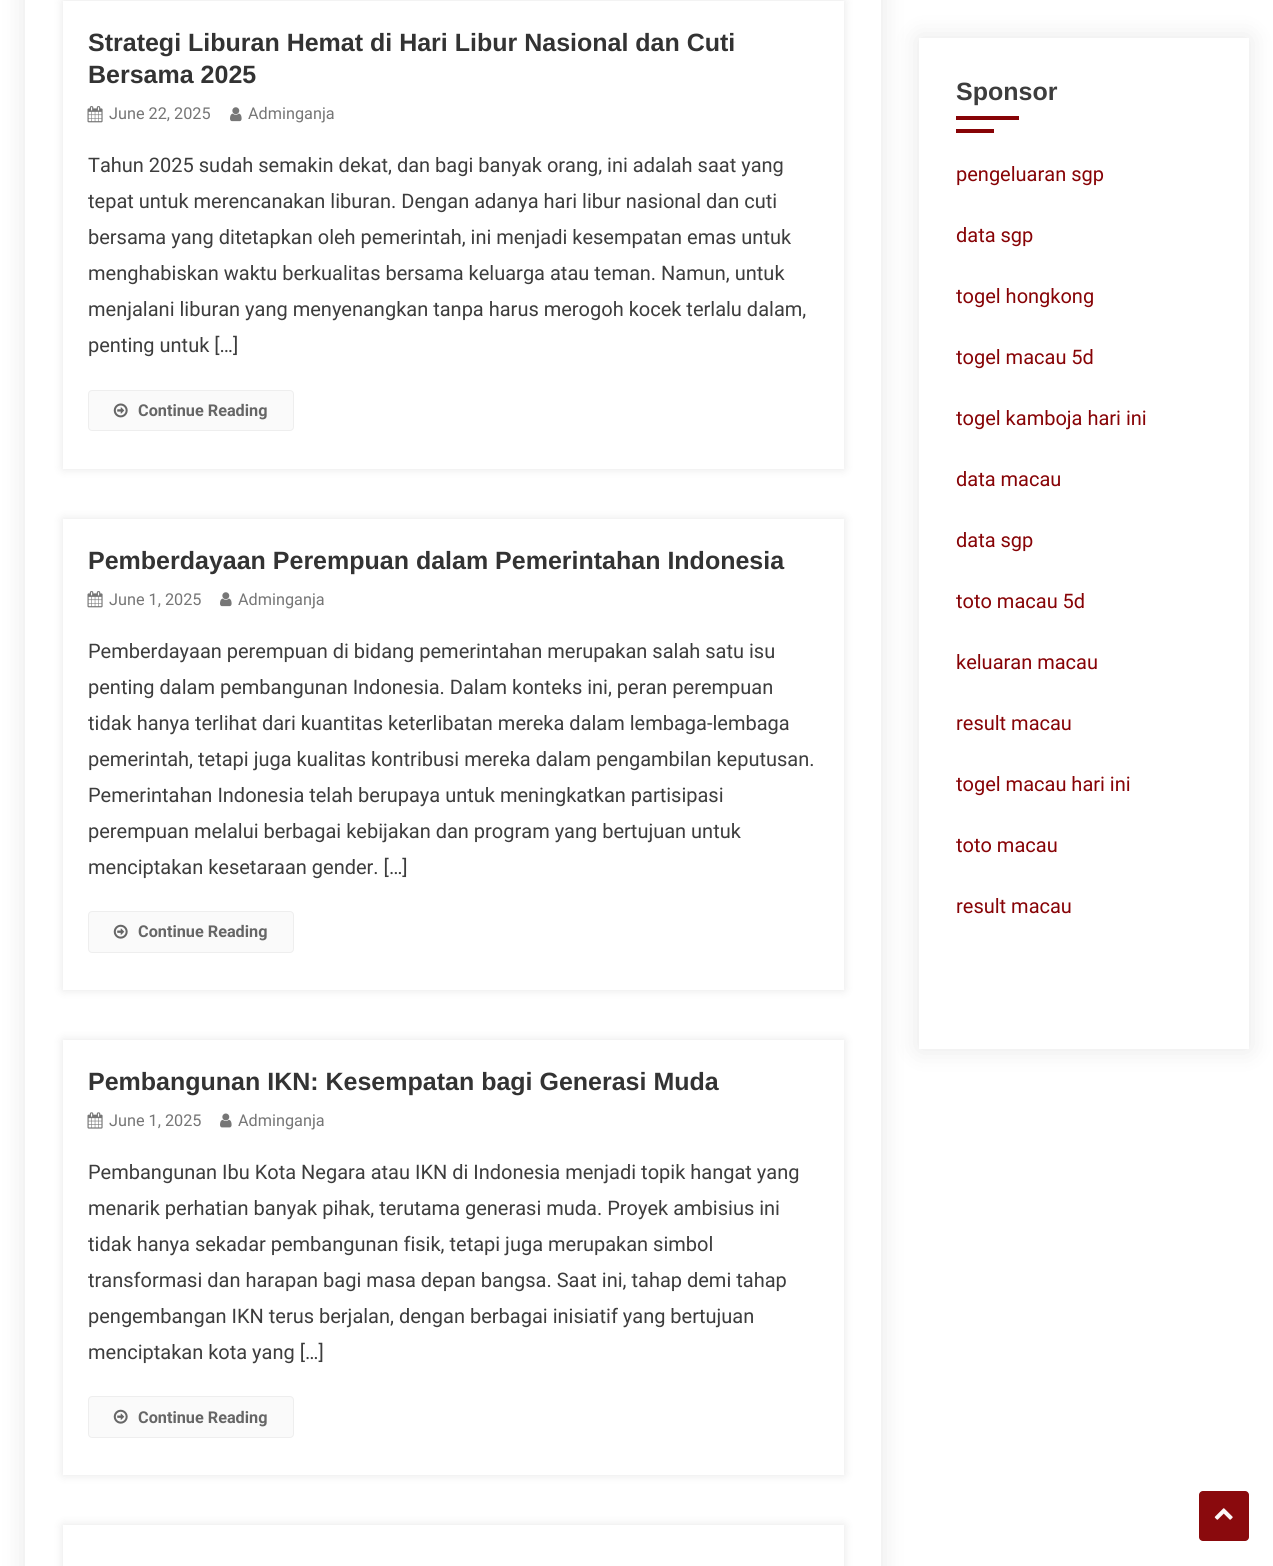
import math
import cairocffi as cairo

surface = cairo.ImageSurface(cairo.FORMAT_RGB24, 1273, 1566)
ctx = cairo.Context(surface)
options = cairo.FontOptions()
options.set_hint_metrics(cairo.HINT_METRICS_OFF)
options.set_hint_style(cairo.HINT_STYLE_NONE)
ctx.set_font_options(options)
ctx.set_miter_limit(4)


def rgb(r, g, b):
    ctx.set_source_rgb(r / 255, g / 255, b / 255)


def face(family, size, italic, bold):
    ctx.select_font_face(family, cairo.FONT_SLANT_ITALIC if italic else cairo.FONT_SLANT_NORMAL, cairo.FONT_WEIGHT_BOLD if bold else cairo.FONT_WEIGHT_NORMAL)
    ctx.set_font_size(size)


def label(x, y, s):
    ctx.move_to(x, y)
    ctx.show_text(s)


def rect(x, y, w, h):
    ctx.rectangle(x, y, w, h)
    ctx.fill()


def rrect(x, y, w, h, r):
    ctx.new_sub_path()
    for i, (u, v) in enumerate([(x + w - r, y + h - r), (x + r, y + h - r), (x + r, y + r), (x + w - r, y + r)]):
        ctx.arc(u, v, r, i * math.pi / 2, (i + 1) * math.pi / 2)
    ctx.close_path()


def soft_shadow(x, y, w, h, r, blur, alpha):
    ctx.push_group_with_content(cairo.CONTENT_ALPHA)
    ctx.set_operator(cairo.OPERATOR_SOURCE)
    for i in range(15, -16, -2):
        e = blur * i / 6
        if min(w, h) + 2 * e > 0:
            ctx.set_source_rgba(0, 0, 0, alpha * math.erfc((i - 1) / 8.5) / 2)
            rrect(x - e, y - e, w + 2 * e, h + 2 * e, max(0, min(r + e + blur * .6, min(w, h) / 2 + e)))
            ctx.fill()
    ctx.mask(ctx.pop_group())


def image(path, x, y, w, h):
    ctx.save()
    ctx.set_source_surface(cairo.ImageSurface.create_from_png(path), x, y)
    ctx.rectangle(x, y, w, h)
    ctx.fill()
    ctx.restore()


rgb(255, 255, 255)
ctx.paint()
ctx.save()
ctx.set_fill_rule(cairo.FILL_RULE_EVEN_ODD)
ctx.new_path()
ctx.move_to(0, 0)
ctx.line_to(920, 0)
ctx.line_to(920, 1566)
ctx.line_to(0, 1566)
ctx.close_path()
ctx.move_to(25, -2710)
ctx.line_to(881, -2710)
ctx.line_to(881, 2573)
ctx.line_to(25, 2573)
ctx.close_path()
ctx.clip()
rgb(0, 0, 0)
soft_shadow(25, -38, 856, 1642, 0, 12.5, 0.1)
ctx.restore()
ctx.save()
ctx.set_fill_rule(cairo.FILL_RULE_EVEN_ODD)
ctx.new_path()
ctx.move_to(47, 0)
ctx.line_to(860, 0)
ctx.line_to(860, 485)
ctx.line_to(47, 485)
ctx.close_path()
ctx.move_to(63, 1)
ctx.line_to(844, 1)
ctx.line_to(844, 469)
ctx.line_to(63, 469)
ctx.close_path()
ctx.clip()
rgb(0, 0, 0)
soft_shadow(63, 1, 781, 468, 0, 5, 0.1)
ctx.restore()
face('Liberation Sans', 25, 0, 1)
rgb(51, 51, 51)
label(88, 51, 'Strategi Liburan Hemat di Hari Libur Nasional dan Cuti')
label(88, 83, 'Bersama 2025')
image('image0.png', 87, 106, 16, 17)
face('Roboto', 16.25, 0, 0)
rgb(118, 118, 118)
label(109, 119, 'June 22, 2025')
image('image1.png', 230, 107, 12, 15)
label(248, 119, 'Adminganja')
face('Roboto', 20, 0, 0)
rgb(61, 61, 61)
label(88, 172, 'Tahun 2025 sudah semakin dekat, dan bagi banyak orang, ini adalah saat yang')
label(88, 208, 'tepat untuk merencanakan liburan. Dengan adanya hari libur nasional dan cuti')
label(88, 244, 'bersama yang ditetapkan oleh pemerintah, ini menjadi kesempatan emas untuk')
label(88, 280, 'menghabiskan waktu berkualitas bersama keluarga atau teman. Namun, untuk')
label(88, 316, 'menjalani liburan yang menyenangkan tanpa harus merogoh kocek terlalu dalam,')
label(88, 352, 'penting untuk […]')
rgb(250, 250, 250)
rrect(88.5, 390.5, 205, 40, 3.5)
ctx.fill_preserve()
rgb(238, 238, 238)
ctx.set_line_width(1)
ctx.stroke()
image('image2.png', 113, 403, 15, 15)
face('Roboto', 16.25, 0, 1)
rgb(102, 102, 102)
label(138, 416, 'Continue Reading')
ctx.save()
ctx.set_fill_rule(cairo.FILL_RULE_EVEN_ODD)
ctx.new_path()
ctx.move_to(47, 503)
ctx.line_to(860, 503)
ctx.line_to(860, 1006)
ctx.line_to(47, 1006)
ctx.close_path()
ctx.move_to(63, 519)
ctx.line_to(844, 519)
ctx.line_to(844, 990)
ctx.line_to(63, 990)
ctx.close_path()
ctx.clip()
rgb(0, 0, 0)
soft_shadow(63, 519, 781, 471, 0, 5, 0.1)
ctx.restore()
face('Liberation Sans', 25, 0, 1)
rgb(51, 51, 51)
label(88, 569, 'Pemberdayaan Perempuan dalam Pemerintahan Indonesia')
image('image0.png', 87, 591, 16, 17)
face('Roboto', 16.25, 0, 0)
rgb(118, 118, 118)
label(109, 605, 'June 1, 2025')
image('image1.png', 220, 592, 12, 15)
label(238, 605, 'Adminganja')
face('Roboto', 20, 0, 0)
rgb(61, 61, 61)
label(88, 658, 'Pemberdayaan perempuan di bidang pemerintahan merupakan salah satu isu')
label(88, 694, 'penting dalam pembangunan Indonesia. Dalam konteks ini, peran perempuan')
label(88, 730, 'tidak hanya terlihat dari kuantitas keterlibatan mereka dalam lembaga-lembaga')
label(88, 766, 'pemerintah, tetapi juga kualitas kontribusi mereka dalam pengambilan keputusan.')
label(88, 802, 'Pemerintahan Indonesia telah berupaya untuk meningkatkan partisipasi')
label(88, 838, 'perempuan melalui berbagai kebijakan dan program yang bertujuan untuk')
label(88, 874, 'menciptakan kesetaraan gender. […]')
rgb(250, 250, 250)
rrect(88.5, 911.5, 205, 41, 3.5)
ctx.fill_preserve()
rgb(238, 238, 238)
ctx.stroke()
image('image3.png', 113, 924, 15, 15)
face('Roboto', 16.25, 0, 1)
rgb(102, 102, 102)
label(138, 937, 'Continue Reading')
ctx.save()
ctx.set_fill_rule(cairo.FILL_RULE_EVEN_ODD)
ctx.new_path()
ctx.move_to(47, 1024)
ctx.line_to(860, 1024)
ctx.line_to(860, 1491)
ctx.line_to(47, 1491)
ctx.close_path()
ctx.move_to(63, 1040)
ctx.line_to(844, 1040)
ctx.line_to(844, 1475)
ctx.line_to(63, 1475)
ctx.close_path()
ctx.clip()
rgb(0, 0, 0)
soft_shadow(63, 1040, 781, 435, 0, 5, 0.1)
ctx.restore()
face('Liberation Sans', 25, 0, 1)
rgb(51, 51, 51)
label(88, 1090, 'Pembangunan IKN: Kesempatan bagi Generasi Muda')
image('image4.png', 87, 1112, 16, 17)
face('Roboto', 16.25, 0, 0)
rgb(118, 118, 118)
label(109, 1126, 'June 1, 2025')
image('image5.png', 220, 1113, 12, 15)
label(238, 1126, 'Adminganja')
face('Roboto', 20, 0, 0)
rgb(61, 61, 61)
label(88, 1179, 'Pembangunan Ibu Kota Negara atau IKN di Indonesia menjadi topik hangat yang')
label(88, 1215, 'menarik perhatian banyak pihak, terutama generasi muda. Proyek ambisius ini')
label(88, 1251, 'tidak hanya sekadar pembangunan fisik, tetapi juga merupakan simbol')
label(88, 1287, 'transformasi dan harapan bagi masa depan bangsa. Saat ini, tahap demi tahap')
label(88, 1323, 'pengembangan IKN terus berjalan, dengan berbagai inisiatif yang bertujuan')
label(88, 1359, 'menciptakan kota yang […]')
rgb(250, 250, 250)
rrect(88.5, 1396.5, 205, 41, 3.5)
ctx.fill_preserve()
rgb(238, 238, 238)
ctx.stroke()
image('image3.png', 113, 1409, 15, 15)
face('Roboto', 16.25, 0, 1)
rgb(102, 102, 102)
label(138, 1423, 'Continue Reading')
ctx.save()
ctx.set_fill_rule(cairo.FILL_RULE_EVEN_ODD)
ctx.new_path()
ctx.move_to(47, 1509)
ctx.line_to(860, 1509)
ctx.line_to(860, 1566)
ctx.line_to(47, 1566)
ctx.close_path()
ctx.move_to(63, 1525)
ctx.line_to(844, 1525)
ctx.line_to(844, 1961)
ctx.line_to(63, 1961)
ctx.close_path()
ctx.clip()
rgb(0, 0, 0)
soft_shadow(63, 1525, 781, 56, 0, 5, 0.1)
ctx.restore()
rgb(0, 0, 0)
soft_shadow(919, 38, 330, 1011, 0, 12.5, 0.1)
rgb(255, 255, 255)
rect(919, 38, 330, 1011)
face('Liberation Sans', 25, 0, 1)
rgb(61, 61, 61)
label(956, 100, 'Sponsor')
rgb(135, 3, 6)
rect(956, 116, 63, 4)
rect(956, 129, 38, 4)
face('Roboto', 20, 0, 0)
label(956, 181, 'pengeluaran sgp')
label(956, 242, 'data sgp')
label(956, 303, 'togel hongkong')
label(956, 364, 'togel macau 5d')
label(956, 425, 'togel kamboja hari ini')
label(956, 486, 'data macau')
label(956, 547, 'data sgp')
label(956, 608, 'toto macau 5d')
label(956, 669, 'keluaran macau')
label(956, 730, 'result macau')
label(956, 791, 'togel macau hari ini')
label(956, 852, 'toto macau')
label(956, 913, 'result macau')
rgb(138, 10, 13)
rrect(1199, 1491, 50, 50, 4)
ctx.fill()
image('image6.png', 1214, 1508, 19, 12)
surface.write_to_png('render.png')
